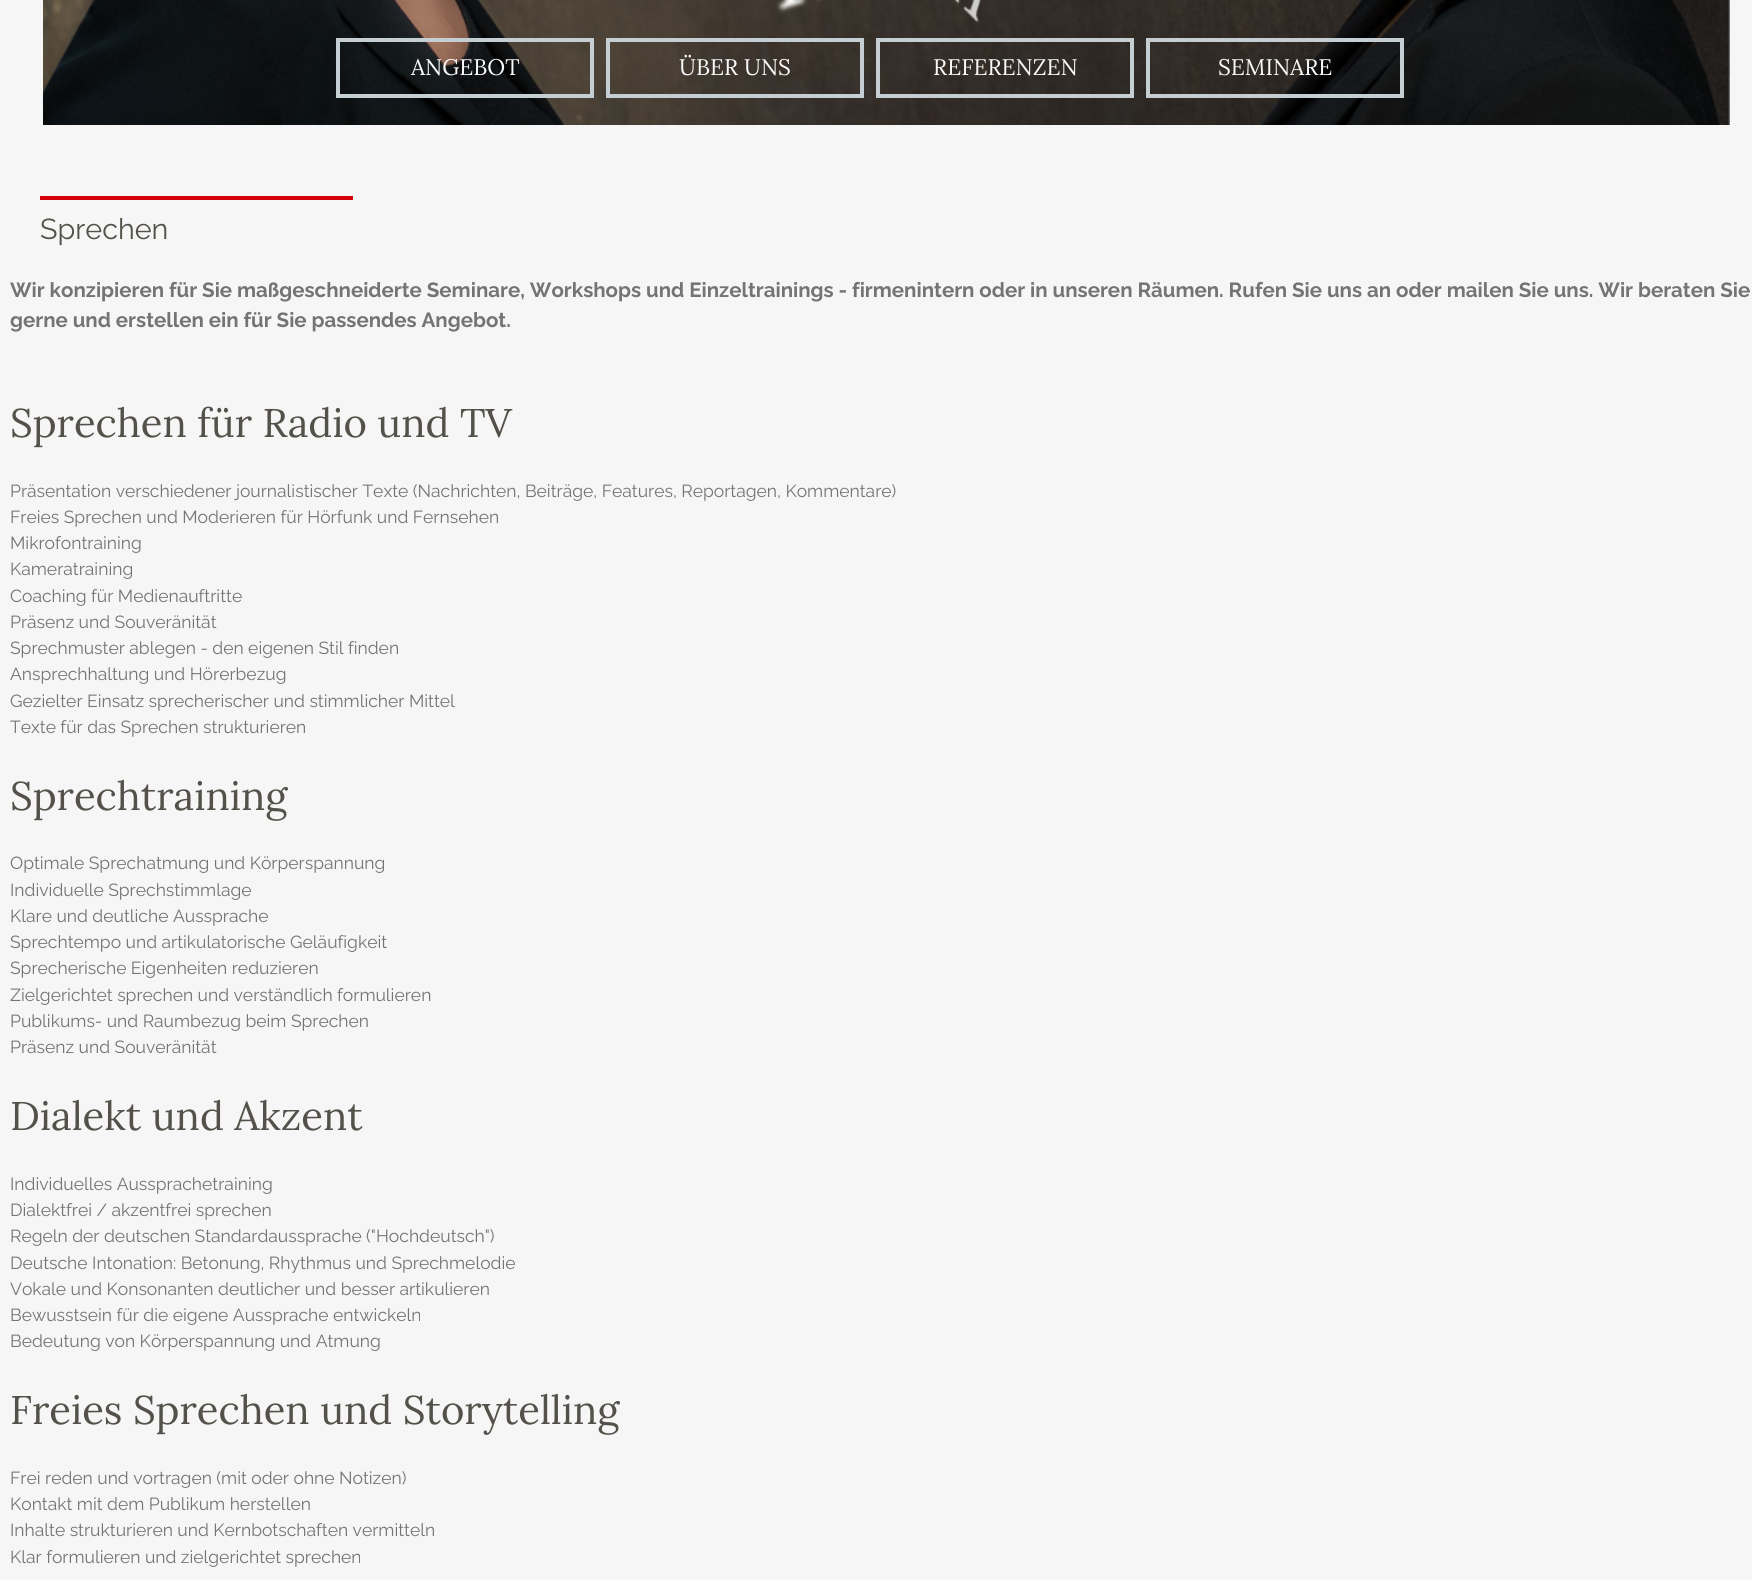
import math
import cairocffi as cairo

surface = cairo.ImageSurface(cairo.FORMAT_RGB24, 1752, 1580)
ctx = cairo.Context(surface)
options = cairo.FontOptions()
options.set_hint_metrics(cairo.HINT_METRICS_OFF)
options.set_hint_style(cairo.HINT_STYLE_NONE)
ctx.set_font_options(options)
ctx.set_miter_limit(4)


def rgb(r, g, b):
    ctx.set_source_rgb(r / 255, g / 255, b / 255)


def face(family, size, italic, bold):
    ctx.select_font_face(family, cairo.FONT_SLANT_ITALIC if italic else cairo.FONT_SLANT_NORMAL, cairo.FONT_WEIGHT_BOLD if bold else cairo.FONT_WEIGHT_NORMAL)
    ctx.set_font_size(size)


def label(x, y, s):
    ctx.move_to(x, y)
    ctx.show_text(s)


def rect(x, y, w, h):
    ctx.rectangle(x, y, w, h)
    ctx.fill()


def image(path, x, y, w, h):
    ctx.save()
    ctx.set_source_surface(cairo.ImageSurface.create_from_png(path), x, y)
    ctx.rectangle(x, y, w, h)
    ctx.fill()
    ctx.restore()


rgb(246, 246, 246)
ctx.paint()
image('image0.png', 43, 0, 1687, 125)
ctx.rectangle(338, 40, 254, 56)
rgb(196, 206, 211)
ctx.set_line_width(4)
ctx.stroke()
face('Lora', 22.5, 0, 0)
rgb(249, 249, 249)
label(411, 75, 'ANGEBOT')
ctx.rectangle(608, 40, 254, 56)
rgb(196, 206, 211)
ctx.stroke()
rgb(249, 249, 249)
label(679, 75, 'ÜBER UNS')
ctx.rectangle(878, 40, 254, 56)
rgb(196, 206, 211)
ctx.stroke()
rgb(249, 249, 249)
label(933, 75, 'REFERENZEN')
ctx.rectangle(1148, 40, 254, 56)
rgb(196, 206, 211)
ctx.stroke()
rgb(249, 249, 249)
label(1218, 75, 'SEMINARE')
rgb(213, 0, 10)
rect(40, 196, 313, 4)
face('Raleway', 28.75, 0, 0)
rgb(83, 81, 74)
label(40, 239, 'Sprechen')
face('Raleway', 20.47, 0, 1)
rgb(116, 116, 116)
label(10, 297, 'Wir konzipieren für Sie maßgeschneiderte Seminare, Workshops und Einzeltrainings - firmenintern oder in unseren Räumen. Rufen Sie uns an oder mailen Sie uns. Wir beraten Sie')
label(10, 327, 'gerne und erstellen ein für Sie passendes Angebot.')
face('Lora', 40, 0, 0)
rgb(83, 81, 74)
label(10, 437, 'Sprechen für Radio und TV')
face('Raleway', 17.5, 0, 0)
rgb(116, 116, 116)
label(10, 497, 'Präsentation verschiedener journalistischer Texte (Nachrichten, Beiträge, Features, Reportagen, Kommentare)')
label(10, 523, 'Freies Sprechen und Moderieren für Hörfunk und Fernsehen')
label(10, 549, 'Mikrofontraining')
label(10, 575, 'Kameratraining')
label(10, 602, 'Coaching für Medienauftritte')
label(10, 628, 'Präsenz und Souveränität')
label(10, 654, 'Sprechmuster ablegen - den eigenen Stil finden')
label(10, 680, 'Ansprechhaltung und Hörerbezug')
label(10, 707, 'Gezielter Einsatz sprecherischer und stimmlicher Mittel')
label(10, 733, 'Texte für das Sprechen strukturieren')
face('Lora', 40, 0, 0)
rgb(83, 81, 74)
label(10, 810, 'Sprechtraining')
face('Raleway', 17.5, 0, 0)
rgb(116, 116, 116)
label(10, 869, 'Optimale Sprechatmung und Körperspannung')
label(10, 896, 'Individuelle Sprechstimmlage')
label(10, 922, 'Klare und deutliche Aussprache')
label(10, 948, 'Sprechtempo und artikulatorische Geläufigkeit')
label(10, 974, 'Sprecherische Eigenheiten reduzieren')
label(10, 1001, 'Zielgerichtet sprechen und verständlich formulieren')
label(10, 1027, 'Publikums- und Raumbezug beim Sprechen')
label(10, 1053, 'Präsenz und Souveränität')
face('Lora', 40, 0, 0)
rgb(83, 81, 74)
label(10, 1130, 'Dialekt und Akzent')
face('Raleway', 17.5, 0, 0)
rgb(116, 116, 116)
label(10, 1190, 'Individuelles Aussprachetraining')
label(10, 1216, 'Dialektfrei / akzentfrei sprechen')
label(10, 1242, 'Regeln der deutschen Standardaussprache ("Hochdeutsch")')
label(10, 1269, 'Deutsche Intonation: Betonung, Rhythmus und Sprechmelodie')
label(10, 1295, 'Vokale und Konsonanten deutlicher und besser artikulieren')
label(10, 1321, 'Bewusstsein für die eigene Aussprache entwickeln')
label(10, 1347, 'Bedeutung von Körperspannung und Atmung')
face('Lora', 40, 0, 0)
rgb(83, 81, 74)
label(10, 1424, 'Freies Sprechen und Storytelling')
face('Raleway', 17.5, 0, 0)
rgb(116, 116, 116)
label(10, 1484, 'Frei reden und vortragen (mit oder ohne Notizen)')
label(10, 1510, 'Kontakt mit dem Publikum herstellen')
label(10, 1536, 'Inhalte strukturieren und Kernbotschaften vermitteln')
label(10, 1563, 'Klar formulieren und zielgerichtet sprechen')
surface.write_to_png('render.png')
